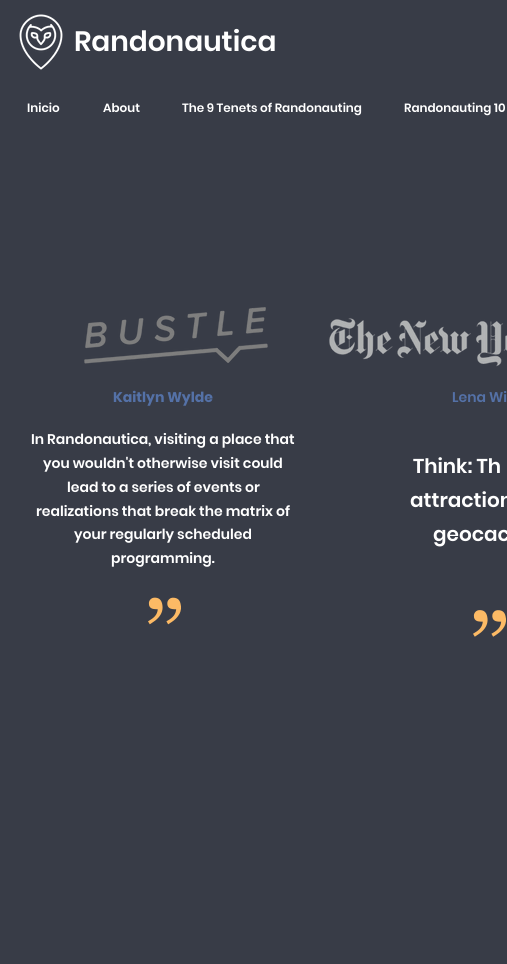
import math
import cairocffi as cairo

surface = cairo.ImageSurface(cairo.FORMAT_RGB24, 507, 964)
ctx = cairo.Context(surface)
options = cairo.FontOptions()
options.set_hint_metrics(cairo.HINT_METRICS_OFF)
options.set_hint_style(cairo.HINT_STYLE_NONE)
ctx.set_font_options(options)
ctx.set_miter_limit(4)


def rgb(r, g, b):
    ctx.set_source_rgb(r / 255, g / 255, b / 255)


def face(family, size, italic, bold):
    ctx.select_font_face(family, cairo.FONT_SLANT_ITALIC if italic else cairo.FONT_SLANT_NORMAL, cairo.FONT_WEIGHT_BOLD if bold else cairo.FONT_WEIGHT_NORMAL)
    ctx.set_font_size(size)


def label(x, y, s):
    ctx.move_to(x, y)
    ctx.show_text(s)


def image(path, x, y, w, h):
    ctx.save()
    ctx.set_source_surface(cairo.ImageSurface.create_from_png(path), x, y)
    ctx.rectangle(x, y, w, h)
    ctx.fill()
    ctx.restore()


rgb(56, 60, 71)
ctx.paint()
image('image0.png', 19, 14, 44, 56)
face('Poppins SemiBold', 28, 0, 0)
rgb(255, 255, 255)
label(74, 51, 'Randonautica')
face('Poppins SemiBold', 12, 0, 0)
label(27, 112, 'Inicio')
label(103, 112, 'About')
label(182, 112, 'The 9 Tenets of Randonauting')
label(404, 112, 'Randonauting 10')
image('image1.png', 84, 307, 184, 57)
face('Poppins', 14, 0, 1)
rgb(84, 113, 167)
label(113, 402, 'Kaitlyn Wylde')
face('Poppins SemiBold', 14, 0, 0)
rgb(255, 255, 255)
label(31, 444, 'In Randonautica, visiting a place that')
label(43, 468, 'you wouldn\'t otherwise visit could')
label(67, 492, 'lead to a series of events or')
label(36, 516, 'realizations that break the matrix of')
label(74, 539, 'your regularly scheduled')
label(111, 563, 'programming.')
image('image2.png', 148, 597, 33, 28)
image('image3.png', 329, 318, 178, 49)
rgb(84, 113, 167)
label(452, 402, 'Lena Wi')
face('Poppins SemiBold', 20, 0, 0)
rgb(255, 255, 255)
label(413, 473, 'Think: Th')
label(410, 507, 'attraction')
label(433, 541, 'geocac')
image('image4.png', 473, 610, 33, 27)
surface.write_to_png('render.png')
